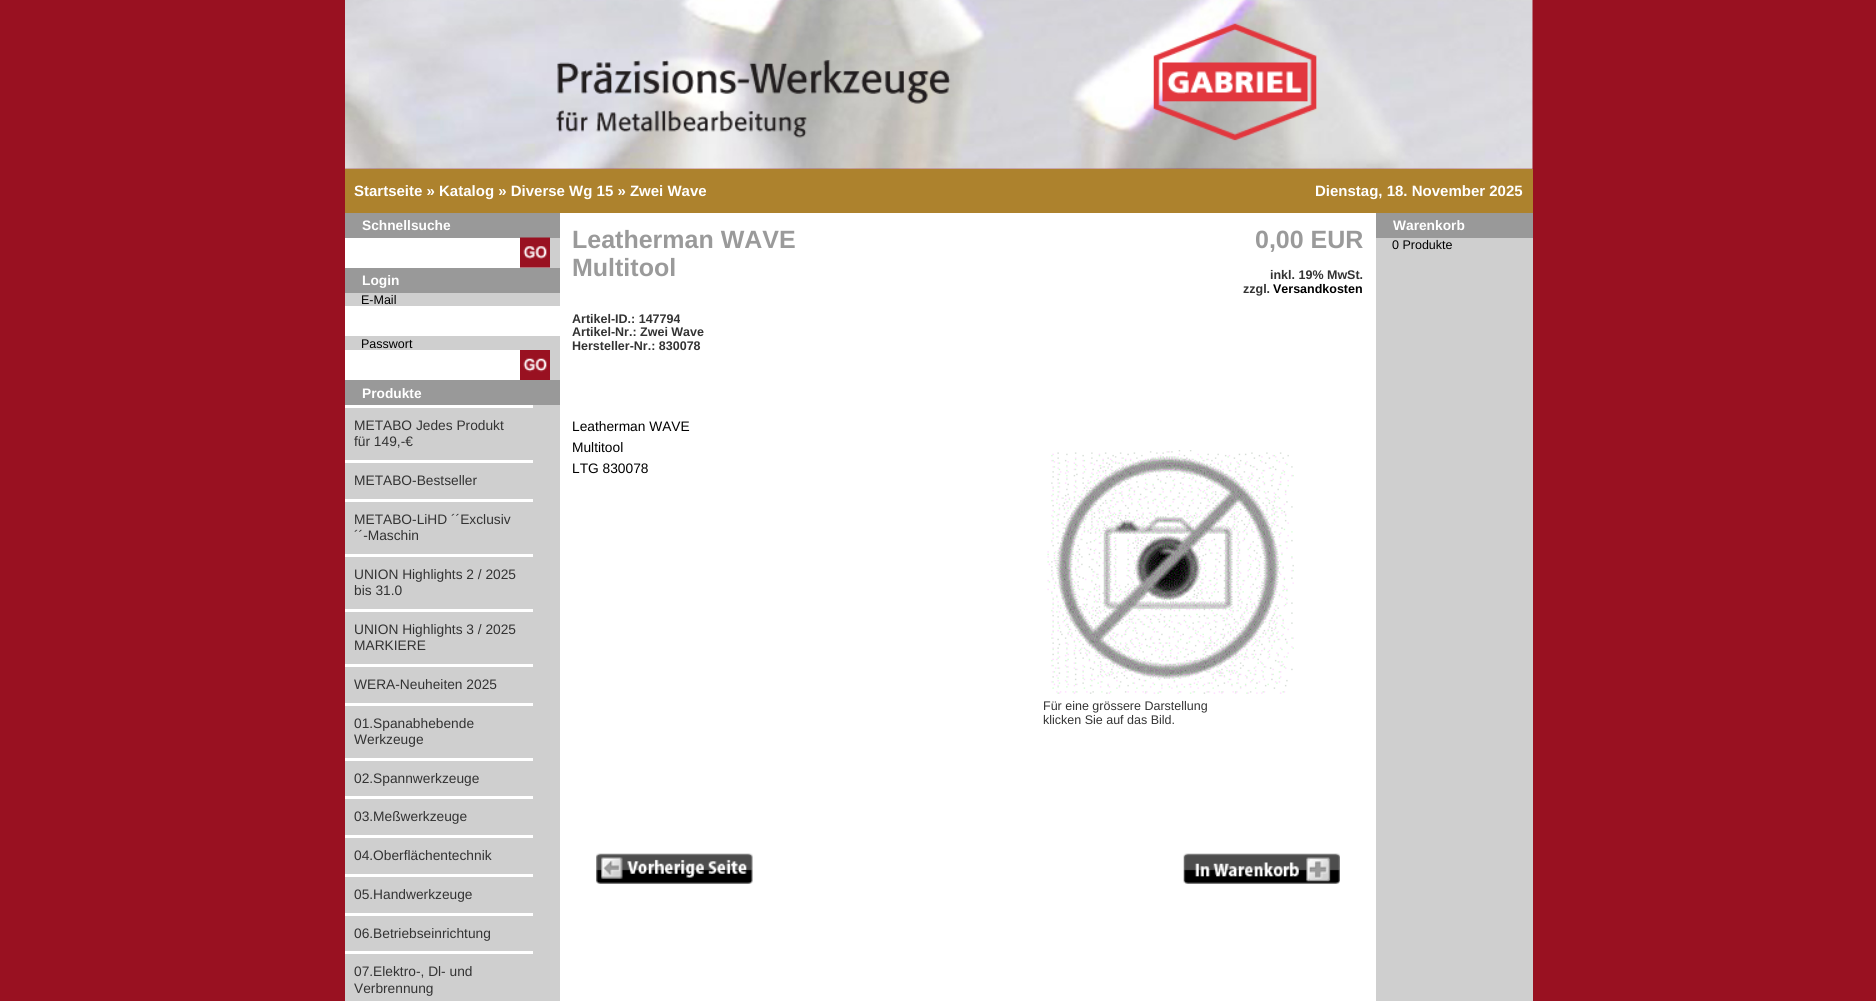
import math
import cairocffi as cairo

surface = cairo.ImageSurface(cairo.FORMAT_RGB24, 1876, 1001)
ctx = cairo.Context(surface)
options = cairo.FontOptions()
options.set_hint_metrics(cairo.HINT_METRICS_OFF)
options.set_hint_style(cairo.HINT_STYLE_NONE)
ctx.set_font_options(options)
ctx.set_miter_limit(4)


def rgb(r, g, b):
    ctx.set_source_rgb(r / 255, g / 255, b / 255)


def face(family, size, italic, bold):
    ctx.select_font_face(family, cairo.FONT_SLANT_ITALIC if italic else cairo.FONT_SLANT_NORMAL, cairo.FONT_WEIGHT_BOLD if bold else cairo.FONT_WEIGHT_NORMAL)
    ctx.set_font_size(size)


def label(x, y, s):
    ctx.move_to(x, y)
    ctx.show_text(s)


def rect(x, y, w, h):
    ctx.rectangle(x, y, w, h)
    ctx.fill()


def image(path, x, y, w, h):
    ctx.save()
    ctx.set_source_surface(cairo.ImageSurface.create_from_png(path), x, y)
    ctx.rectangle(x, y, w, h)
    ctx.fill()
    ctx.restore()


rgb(153, 17, 33)
ctx.paint()
image('image0.png', 345, 0, 1188, 169)
image('image1.png', 556, 23, 761, 118)
rgb(173, 130, 45)
rect(345, 169, 1188, 44)
face('Liberation Sans', 15, 0, 1)
rgb(255, 255, 255)
label(354, 196, 'Startseite » Katalog » Diverse Wg 15 » Zwei Wave')
label(1315, 196, 'Dienstag, 18. November 2025')
rgb(207, 207, 207)
rect(345, 405, 215, 596)
rgb(153, 153, 153)
rect(345, 213, 215, 25)
face('Liberation Sans', 13.75, 0, 1)
rgb(255, 255, 255)
label(362, 230, 'Schnellsuche')
rgb(207, 207, 207)
rect(520, 238, 40, 30)
rgb(255, 255, 255)
rect(345, 238, 175, 30)
image('image2.png', 520, 237, 30, 31)
rgb(153, 153, 153)
rect(345, 268, 215, 25)
rgb(255, 255, 255)
label(362, 285, 'Login')
rgb(207, 207, 207)
rect(345, 293, 215, 87)
face('Liberation Sans', 12.5, 0, 0)
rgb(0, 0, 0)
label(361, 304, 'E-Mail')
rgb(255, 255, 255)
rect(345, 306, 215, 30)
rgb(0, 0, 0)
label(361, 348, 'Passwort')
rgb(255, 255, 255)
rect(345, 350, 175, 30)
image('image3.png', 520, 350, 30, 30)
rgb(153, 153, 153)
rect(345, 380, 215, 25)
face('Liberation Sans', 13.75, 0, 1)
rgb(255, 255, 255)
label(362, 398, 'Produkte')
rect(345, 405, 188, 3)
face('Liberation Sans', 13.75, 0, 0)
rgb(51, 51, 51)
label(354, 430, 'METABO Jedes Produkt')
label(354, 446, 'für 149,-€')
rgb(255, 255, 255)
rect(345, 460, 188, 3)
rgb(51, 51, 51)
label(354, 485, 'METABO-Bestseller')
rgb(255, 255, 255)
rect(345, 499, 188, 3)
rgb(51, 51, 51)
label(354, 524, 'METABO-LiHD ´´Exclusiv')
label(354, 540, '´´-Maschin')
rgb(255, 255, 255)
rect(345, 554, 188, 3)
rgb(51, 51, 51)
label(354, 579, 'UNION Highlights 2 / 2025')
label(354, 595, 'bis 31.0')
rgb(255, 255, 255)
rect(345, 609, 188, 3)
rgb(51, 51, 51)
label(354, 634, 'UNION Highlights 3 / 2025')
label(354, 650, 'MARKIERE')
rgb(255, 255, 255)
rect(345, 664, 188, 3)
rgb(51, 51, 51)
label(354, 689, 'WERA-Neuheiten 2025')
rgb(255, 255, 255)
rect(345, 703, 188, 3)
rgb(51, 51, 51)
label(354, 728, '01.Spanabhebende')
label(354, 744, 'Werkzeuge')
rgb(255, 255, 255)
rect(345, 758, 188, 3)
rgb(51, 51, 51)
label(354, 783, '02.Spannwerkzeuge')
rgb(255, 255, 255)
rect(345, 796, 188, 3)
rgb(51, 51, 51)
label(354, 821, '03.Meßwerkzeuge')
rgb(255, 255, 255)
rect(345, 835, 188, 3)
rgb(51, 51, 51)
label(354, 860, '04.Oberflächentechnik')
rgb(255, 255, 255)
rect(345, 874, 188, 3)
rgb(51, 51, 51)
label(354, 899, '05.Handwerkzeuge')
rgb(255, 255, 255)
rect(345, 913, 188, 3)
rgb(51, 51, 51)
label(354, 938, '06.Betriebseinrichtung')
rgb(255, 255, 255)
rect(345, 951, 188, 3)
rgb(51, 51, 51)
label(354, 976, '07.Elektro-, Dl- und')
label(354, 993, 'Verbrennung')
rgb(255, 255, 255)
rect(560, 213, 816, 788)
face('Liberation Sans', 25, 0, 1)
rgb(154, 154, 154)
label(572, 248, 'Leatherman WAVE')
label(572, 276, 'Multitool')
face('Liberation Sans', 12.5, 0, 1)
rgb(51, 51, 51)
label(572, 323, 'Artikel-ID.: 147794')
label(572, 336, 'Artikel-Nr.: Zwei Wave')
label(572, 350, 'Hersteller-Nr.: 830078')
face('Liberation Sans', 25, 0, 1)
rgb(154, 154, 154)
label(1255, 248, '0,00 EUR')
face('Liberation Sans', 12.5, 0, 1)
rgb(51, 51, 51)
label(1270, 279, 'inkl. 19% MwSt.')
label(1243, 293, 'zzgl.')
rgb(0, 0, 0)
label(1273, 293, 'Versandkosten')
face('Liberation Sans', 13.75, 0, 0)
label(572, 431, 'Leatherman WAVE')
label(572, 452, 'Multitool')
label(572, 473, 'LTG 830078')
image('image4.png', 1047, 450, 247, 244)
face('Liberation Sans', 12.5, 0, 0)
rgb(51, 51, 51)
label(1043, 710, 'Für eine grössere Darstellung')
label(1043, 724, 'klicken Sie auf das Bild.')
image('image5.png', 596, 853, 157, 31)
image('image6.png', 1183, 853, 157, 31)
rgb(207, 207, 207)
rect(1376, 238, 157, 763)
rgb(153, 153, 153)
rect(1376, 213, 157, 25)
face('Liberation Sans', 13.75, 0, 1)
rgb(255, 255, 255)
label(1393, 230, 'Warenkorb')
face('Liberation Sans', 12.5, 0, 0)
rgb(0, 0, 0)
label(1392, 249, '0 Produkte')
surface.write_to_png('render.png')
